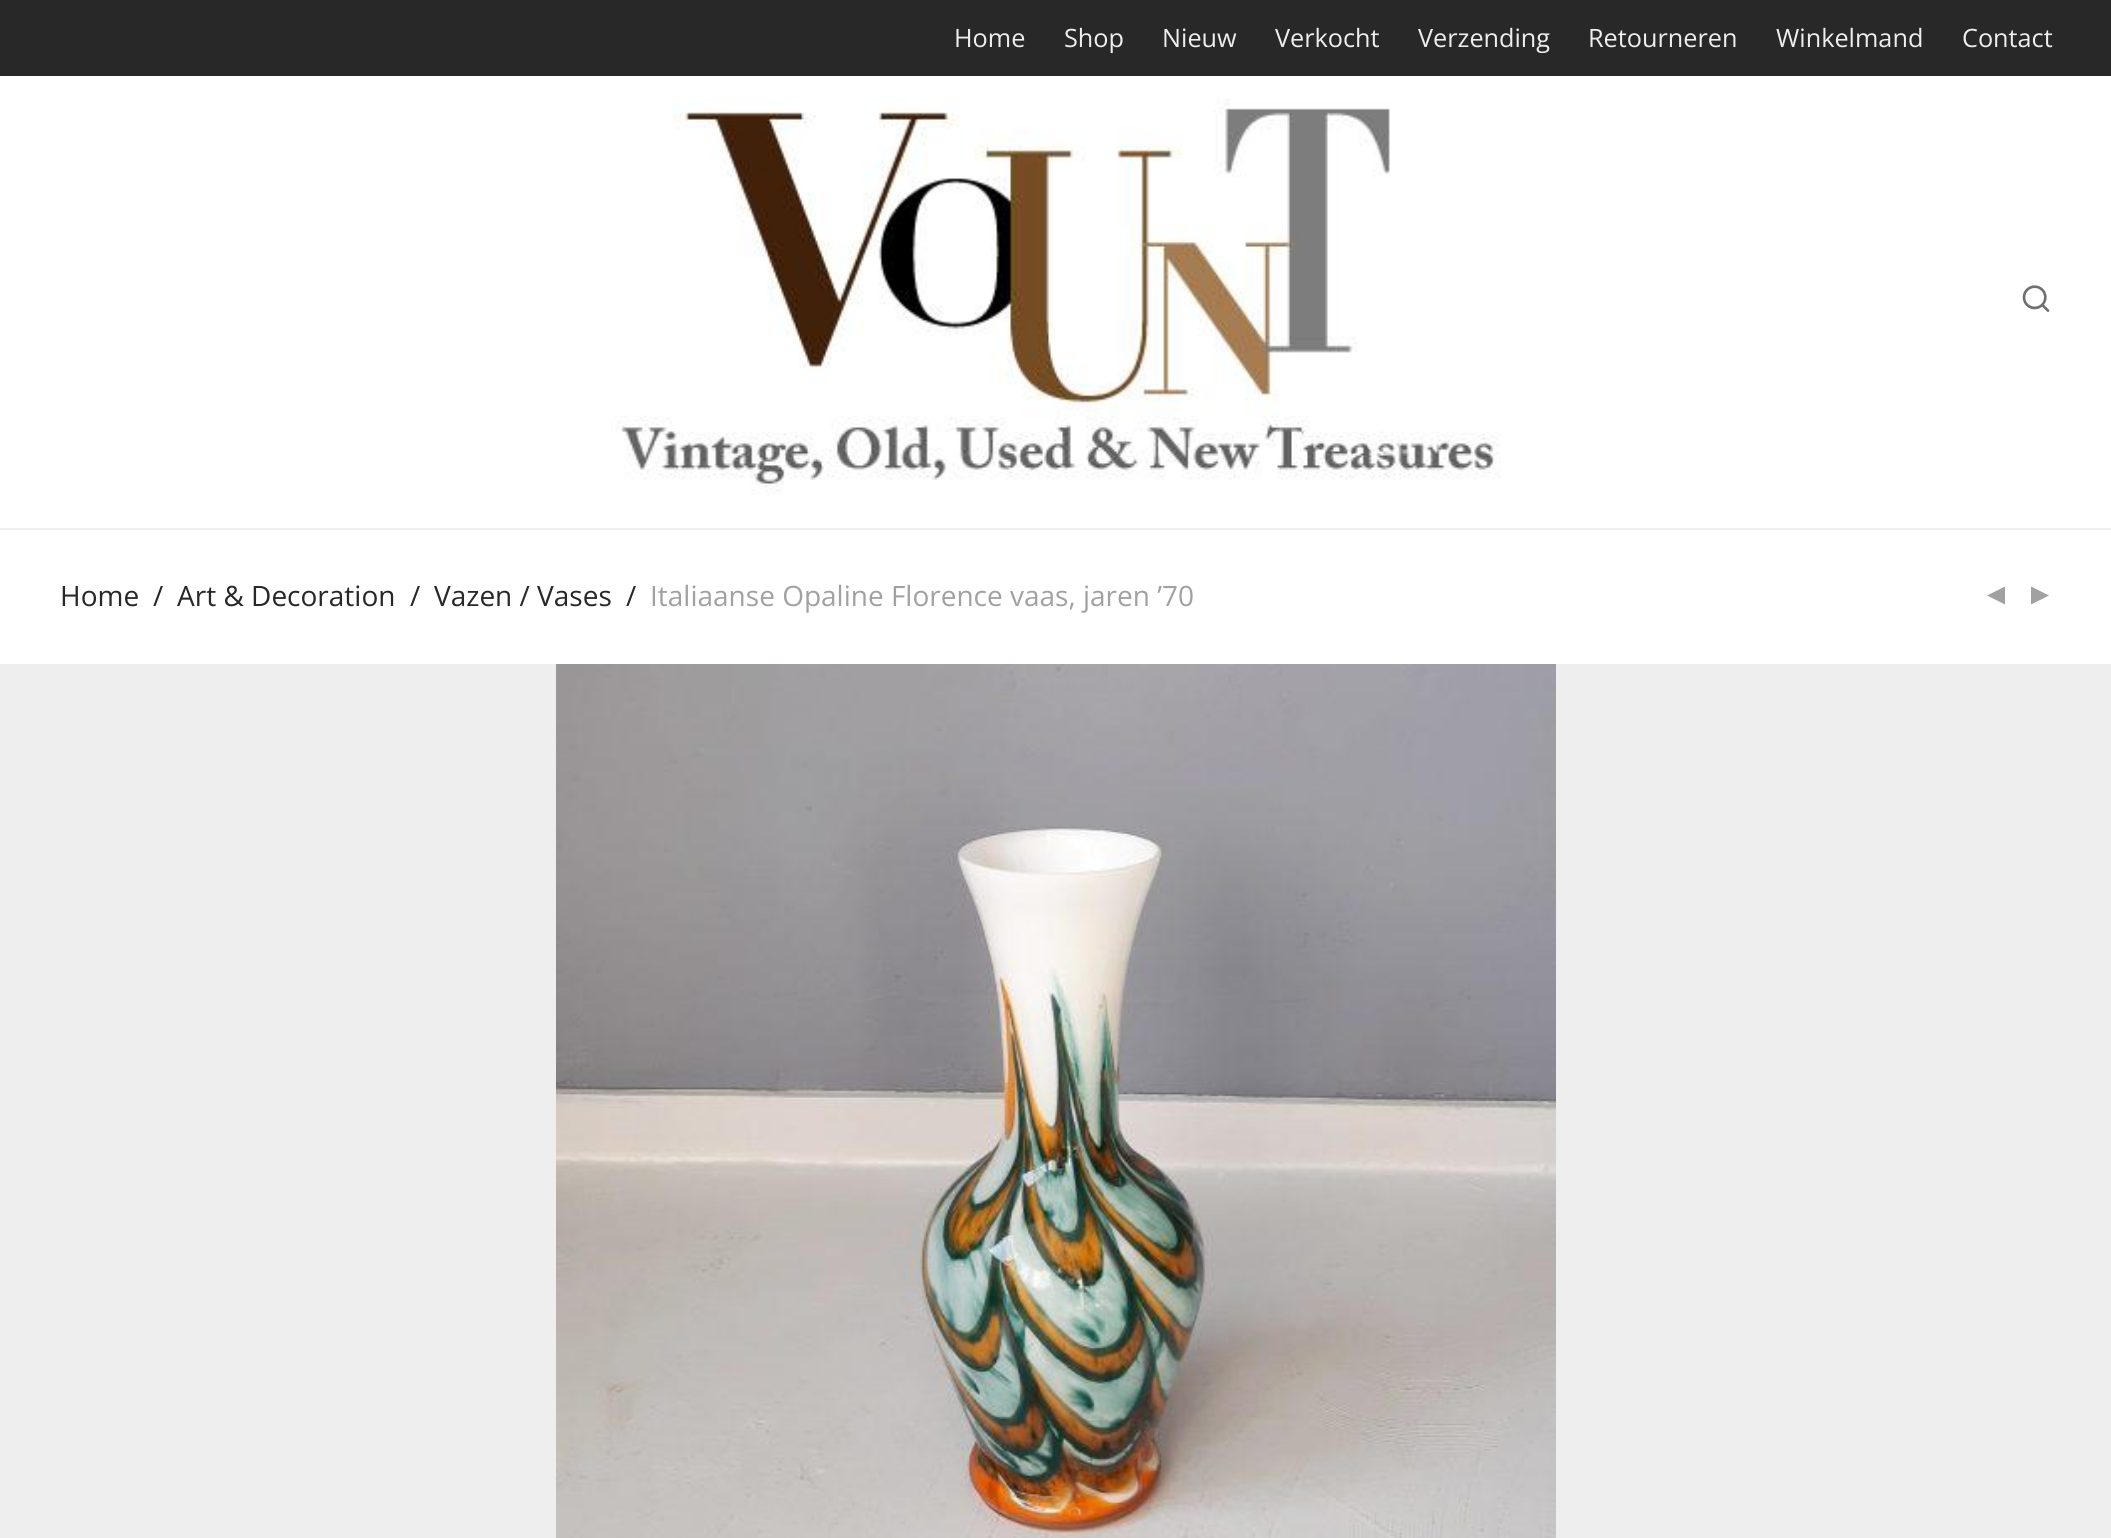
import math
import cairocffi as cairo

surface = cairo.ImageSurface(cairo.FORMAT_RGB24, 2111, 1538)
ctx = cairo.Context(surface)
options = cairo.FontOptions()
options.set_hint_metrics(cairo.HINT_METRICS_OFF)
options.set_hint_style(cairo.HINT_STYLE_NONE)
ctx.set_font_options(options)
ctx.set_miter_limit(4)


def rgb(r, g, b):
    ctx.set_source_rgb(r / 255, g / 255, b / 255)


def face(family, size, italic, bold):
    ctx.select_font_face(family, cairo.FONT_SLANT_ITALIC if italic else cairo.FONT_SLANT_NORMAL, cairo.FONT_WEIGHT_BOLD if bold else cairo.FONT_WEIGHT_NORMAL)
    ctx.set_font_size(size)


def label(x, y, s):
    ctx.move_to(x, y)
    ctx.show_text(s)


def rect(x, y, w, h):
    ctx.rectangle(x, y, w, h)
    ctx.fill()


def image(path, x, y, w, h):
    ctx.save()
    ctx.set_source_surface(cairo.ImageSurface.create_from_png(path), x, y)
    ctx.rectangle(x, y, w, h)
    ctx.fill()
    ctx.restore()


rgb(255, 255, 255)
ctx.paint()
rgb(40, 40, 40)
rect(0, 0, 2111, 76)
face('Open Sans', 25.25, 0, 0)
rgb(238, 238, 238)
label(954, 47, 'Home')
label(1064, 47, 'Shop')
label(1162, 47, 'Nieuw')
label(1275, 47, 'Verkocht')
label(1418, 47, 'Verzending')
label(1588, 47, 'Retourneren')
label(1776, 47, 'Winkelmand')
label(1962, 47, 'Contact')
rect(0, 528, 2111, 2)
image('image0.png', 611, 97, 890, 398)
image('image1.png', 2022, 285, 28, 27)
face('Open Sans', 28, 0, 0)
rgb(40, 40, 40)
label(60, 606, 'Home')
label(153, 606, '/')
label(177, 606, 'Art & Decoration')
label(410, 606, '/')
label(434, 606, 'Vazen / Vases')
label(626, 606, '/')
rgb(161, 161, 161)
label(650, 606, 'Italiaanse Opaline Florence vaas, jaren ’70')
ctx.new_path()
ctx.move_to(2005, 586.5)
ctx.line_to(2005, 604.5)
ctx.line_to(1987, 595.5)
ctx.close_path()
ctx.move_to(2031, 586.5)
ctx.line_to(2031, 604.5)
ctx.line_to(2049, 595.5)
ctx.close_path()
ctx.fill()
rgb(238, 238, 238)
rect(0, 664, 2111, 874)
image('image2.png', 556, 664, 1000, 874)
surface.write_to_png('render.png')
